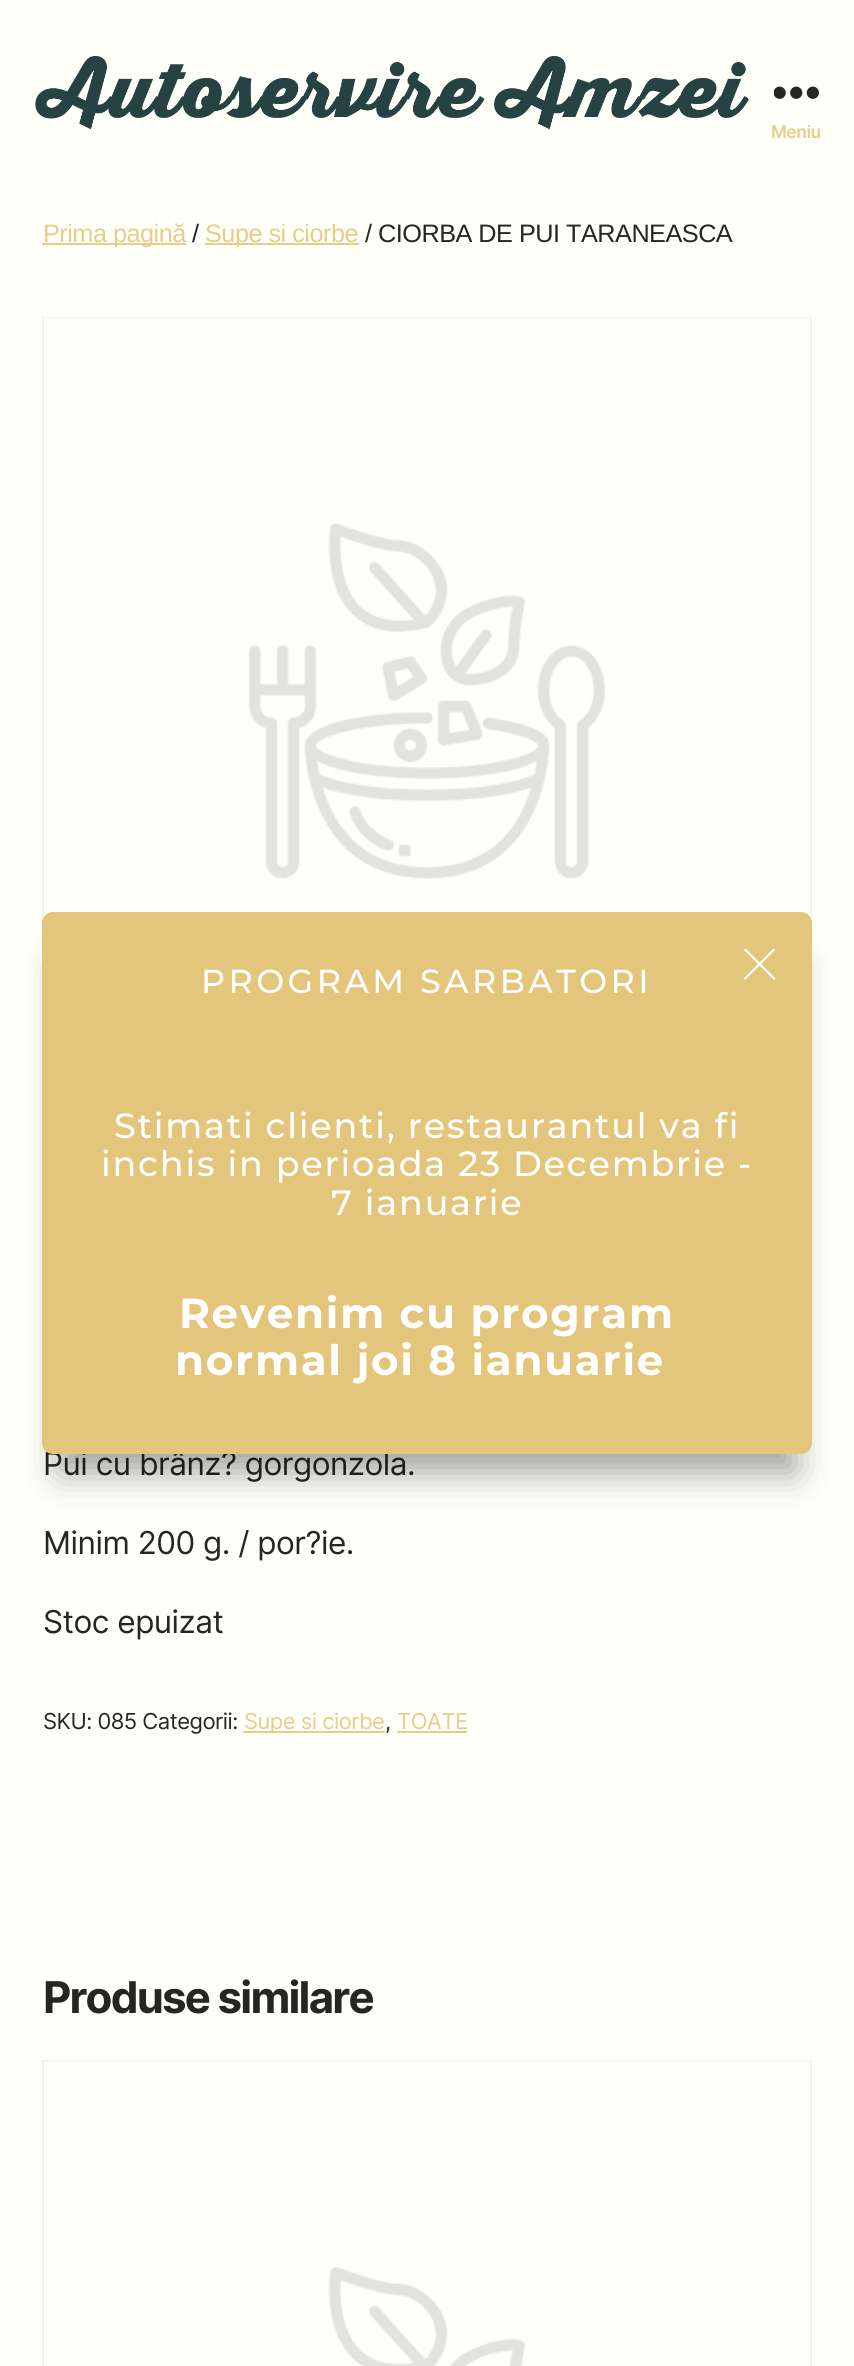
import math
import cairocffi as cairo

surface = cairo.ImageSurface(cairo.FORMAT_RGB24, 854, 2366)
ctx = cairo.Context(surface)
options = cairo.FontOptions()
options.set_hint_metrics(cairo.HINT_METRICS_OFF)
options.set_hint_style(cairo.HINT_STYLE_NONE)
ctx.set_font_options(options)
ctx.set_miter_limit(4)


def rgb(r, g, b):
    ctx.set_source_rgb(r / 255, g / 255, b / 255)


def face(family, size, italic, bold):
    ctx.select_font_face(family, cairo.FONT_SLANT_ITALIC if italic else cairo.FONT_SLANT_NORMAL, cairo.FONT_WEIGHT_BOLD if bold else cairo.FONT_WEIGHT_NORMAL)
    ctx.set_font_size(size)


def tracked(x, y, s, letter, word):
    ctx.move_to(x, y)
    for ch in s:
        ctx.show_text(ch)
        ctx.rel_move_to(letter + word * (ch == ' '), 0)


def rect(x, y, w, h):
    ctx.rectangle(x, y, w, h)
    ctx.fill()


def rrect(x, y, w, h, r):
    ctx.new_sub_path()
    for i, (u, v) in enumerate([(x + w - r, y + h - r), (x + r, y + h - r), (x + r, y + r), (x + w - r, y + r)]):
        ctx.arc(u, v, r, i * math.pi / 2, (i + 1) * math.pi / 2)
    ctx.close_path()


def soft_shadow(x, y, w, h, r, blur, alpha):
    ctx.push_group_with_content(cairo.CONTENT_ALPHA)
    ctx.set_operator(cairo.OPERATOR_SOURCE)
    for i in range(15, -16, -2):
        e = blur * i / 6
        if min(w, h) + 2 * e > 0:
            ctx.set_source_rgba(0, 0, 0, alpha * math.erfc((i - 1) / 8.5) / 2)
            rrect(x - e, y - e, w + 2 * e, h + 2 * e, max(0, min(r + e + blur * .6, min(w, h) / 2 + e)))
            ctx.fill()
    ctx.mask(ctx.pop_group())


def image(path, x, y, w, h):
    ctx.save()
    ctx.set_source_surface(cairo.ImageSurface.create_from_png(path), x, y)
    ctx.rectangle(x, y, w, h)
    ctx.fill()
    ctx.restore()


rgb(255, 255, 250)
ctx.paint()
image('image0.png', 35, 56, 714, 74)
image('image1.png', 774, 86, 45, 13)
face('Inter SemiBold', 17.5, 0, 0)
rgb(231, 205, 138)
tracked(771, 138, 'Meniu', -0.5, 0)
rect(42, 243, 144, 2)
face('Liberation Sans', 25.25, 0, 0)
tracked(43, 242, 'Prima pagină', -0.5, 0)
rgb(38, 38, 33)
tracked(192, 242, '/', -0.5, 0)
rgb(231, 205, 138)
rect(205, 243, 154, 2)
tracked(205, 242, 'Supe si ciorbe', -0.5, 0)
rgb(38, 38, 33)
tracked(365, 242, '/ CIORBA DE PUI TARANEASCA', -0.5, 0)
ctx.rectangle(43, 318, 768, 766)
rgb(244, 244, 239)
ctx.stroke()
image('image2.png', 44, 318, 766, 561)
face('Inter', 31.5, 0, 0)
rgb(38, 38, 33)
tracked(43, 1475, 'Pui cu brânz? gorgonzola.', -0.5, 0)
tracked(43, 1554, 'Minim 200 g. / por?ie.', -0.5, 0)
tracked(43, 1633, 'Stoc epuizat', -0.5, 0)
face('Inter', 22, 0, 0)
tracked(43, 1729, 'SKU: 085 Categorii:', -0.5, 0)
rgb(231, 205, 138)
rect(243, 1731, 142, 2)
tracked(244, 1729, 'Supe si ciorbe', -0.5, 0)
rgb(38, 38, 33)
tracked(385, 1729, ',', -0.5, 0)
rgb(231, 205, 138)
rect(397, 1731, 70, 2)
tracked(397, 1729, 'TOATE', -0.5, 0)
face('Inter', 43.75, 0, 1)
rgb(38, 38, 33)
tracked(43, 2013, 'Produse similare', -1.8, 0)
ctx.rectangle(43, 2061, 768, 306)
rgb(244, 244, 239)
ctx.stroke()
image('image3.png', 44, 2061, 766, 305)
rgb(0, 0, 0)
soft_shadow(60, 964, 735, 508, 0, 17.5, 0.37)
rgb(227, 197, 124)
rrect(42, 912, 770, 542, 11)
ctx.fill()
ctx.new_path()
ctx.move_to(745.5, 950)
ctx.line_to(774, 978.5)
ctx.move_to(773.5, 950)
ctx.line_to(745, 978.5)
rgb(255, 255, 255)
ctx.set_line_width(2.2)
ctx.set_line_cap(cairo.LINE_CAP_SQUARE)
ctx.stroke()
face('Montserrat Thin', 33.25, 0, 0)
tracked(201, 993, 'PROGRAM SARBATORI', 3.5, 0)
face('Montserrat Thin', 35, 0, 0)
tracked(114, 1138, 'Stimati clienti, restaurantul va fi', 1.75, 0)
tracked(101, 1176, 'inchis in perioada 23 Decembrie -', 1.75, 0)
tracked(331, 1215, '7 ianuarie', 1.75, 0)
face('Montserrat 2 Thin', 42, 0, 0)
tracked(179, 1328, 'Revenim cu program', 1.75, 0)
tracked(175, 1375, 'normal joi 8 ianuarie', 1.75, 0)
surface.write_to_png('render.png')
